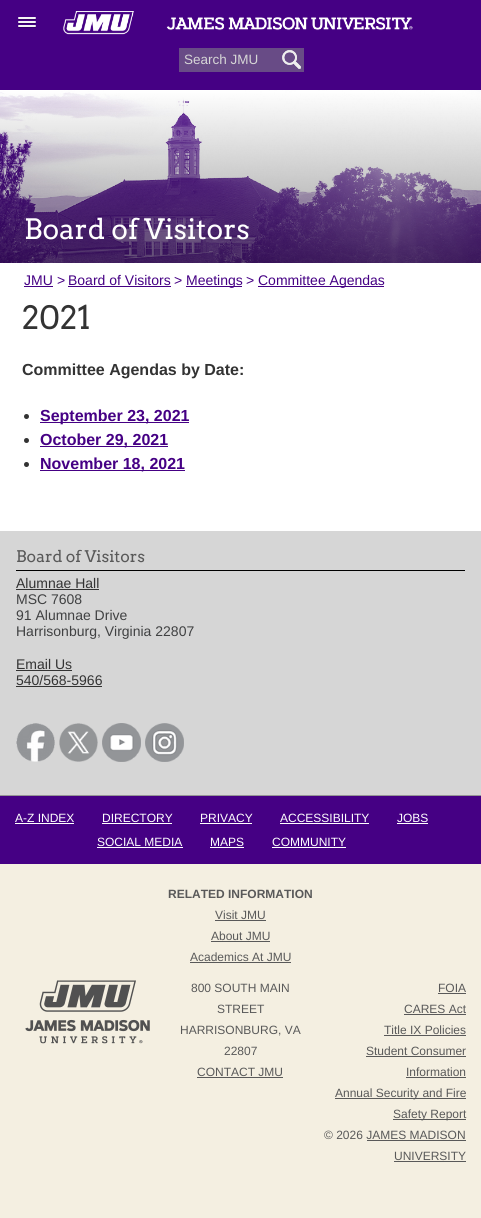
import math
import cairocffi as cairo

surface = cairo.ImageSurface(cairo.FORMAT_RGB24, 481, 1218)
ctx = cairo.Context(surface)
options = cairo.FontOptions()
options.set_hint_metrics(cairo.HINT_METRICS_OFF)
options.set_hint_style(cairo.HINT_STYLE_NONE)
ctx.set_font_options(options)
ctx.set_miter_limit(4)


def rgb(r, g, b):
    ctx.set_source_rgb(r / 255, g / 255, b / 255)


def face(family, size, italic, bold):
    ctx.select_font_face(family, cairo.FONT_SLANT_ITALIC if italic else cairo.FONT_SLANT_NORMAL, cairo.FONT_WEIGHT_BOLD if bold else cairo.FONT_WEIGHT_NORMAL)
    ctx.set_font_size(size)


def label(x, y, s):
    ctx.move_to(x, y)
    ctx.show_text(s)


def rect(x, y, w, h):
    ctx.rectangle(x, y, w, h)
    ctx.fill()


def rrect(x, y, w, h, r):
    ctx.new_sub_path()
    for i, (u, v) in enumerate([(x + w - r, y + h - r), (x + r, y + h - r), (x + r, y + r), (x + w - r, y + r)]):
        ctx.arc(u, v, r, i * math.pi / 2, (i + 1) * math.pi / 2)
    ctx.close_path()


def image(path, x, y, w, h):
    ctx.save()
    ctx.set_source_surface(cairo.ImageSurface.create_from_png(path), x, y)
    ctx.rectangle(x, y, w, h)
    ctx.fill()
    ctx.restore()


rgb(244, 239, 225)
ctx.paint()
rgb(69, 0, 132)
rect(0, 0, 481, 90)
rgb(52, 0, 99)
ctx.new_path()
ctx.move_to(18, 18.5)
ctx.curve_to(17, 20.5, 21.5, 20, 21.5, 20)
ctx.line_to(32.5, 20)
ctx.curve_to(32.5, 20, 37, 20.5, 36, 18.5)
ctx.curve_to(35, 19.5, 28.5, 19, 27, 19)
ctx.curve_to(25.5, 19, 19, 19.5, 18, 18.5)
ctx.close_path()
ctx.fill()
rgb(245, 245, 245)
rrect(18, 17, 18, 2, 1)
ctx.fill()
rgb(52, 0, 99)
ctx.new_path()
ctx.move_to(18, 22.5)
ctx.curve_to(17, 24.5, 21.5, 24, 21.5, 24)
ctx.line_to(32.5, 24)
ctx.curve_to(32.5, 24, 37, 24.5, 36, 22.5)
ctx.curve_to(35, 23.5, 28.5, 23, 27, 23)
ctx.curve_to(25.5, 23, 19, 23.5, 18, 22.5)
ctx.close_path()
ctx.fill()
rgb(245, 245, 245)
rrect(18, 21, 18, 2, 1)
ctx.fill()
rgb(52, 0, 99)
ctx.new_path()
ctx.move_to(18, 26.5)
ctx.curve_to(17, 28.5, 21.5, 28, 21.5, 28)
ctx.line_to(32.5, 28)
ctx.curve_to(32.5, 28, 37, 28.5, 36, 26.5)
ctx.curve_to(35, 27.5, 28.5, 27, 27, 27)
ctx.curve_to(25.5, 27, 19, 27.5, 18, 26.5)
ctx.close_path()
ctx.fill()
rgb(245, 245, 245)
rrect(18, 25, 18, 2, 1)
ctx.fill()
image('image0.png', 63, 11, 350, 24)
rgb(104, 75, 134)
rect(179, 48, 125, 24)
face('Liberation Sans', 13.5, 0, 0)
rgb(214, 214, 214)
label(184, 64, 'Search JMU')
image('image1.png', 282, 50, 19, 19)
rgb(255, 255, 255)
rect(0, 263, 481, 268)
image('image2.png', 0, 90, 481, 173)
face('Arvo', 28, 0, 0)
label(24, 239, 'Board of Visitors')
face('Liberation Sans', 14, 0, 0)
rgb(69, 0, 132)
label(24, 285, 'JMU')
rect(24, 286, 29, 1)
label(57, 285, '>')
label(68, 285, 'Board of Visitors')
rect(68, 286, 103, 1)
label(174, 285, '>')
rect(186, 286, 56, 1)
label(186, 285, 'Meetings')
label(246, 285, '>')
rect(258, 286, 126, 1)
label(258, 285, 'Committee Agendas')
face('Arvo', 32, 0, 0)
rgb(51, 51, 51)
label(22, 329, '2021')
face('Liberation Sans', 16, 0, 1)
label(22, 375, 'Committee Agendas by Date:')
ctx.new_path()
ctx.arc(26.5, 416.5, 2.5, 0, 2 * math.pi)
ctx.fill()
rgb(69, 0, 132)
rect(40, 422, 149, 1)
label(40, 421, 'September 23, 2021')
rgb(51, 51, 51)
ctx.new_path()
ctx.arc(26.5, 440.5, 2.5, 0, 2 * math.pi)
ctx.fill()
rgb(69, 0, 132)
rect(40, 446, 128, 1)
label(40, 445, 'October 29, 2021')
rgb(51, 51, 51)
ctx.new_path()
ctx.arc(26.5, 464.5, 2.5, 0, 2 * math.pi)
ctx.fill()
rgb(69, 0, 132)
rect(40, 470, 145, 1)
label(40, 469, 'November 18, 2021')
rgb(214, 214, 214)
rect(0, 531, 481, 264)
rgb(0, 0, 0)
rect(16, 570, 449, 1)
face('Arvo', 16, 0, 0)
rgb(89, 89, 89)
label(16, 562, 'Board of Visitors')
face('Liberation Sans', 14, 0, 0)
rgb(51, 51, 51)
label(16, 588, 'Alumnae Hall')
rect(16, 589, 83, 1)
rgb(64, 65, 66)
label(16, 604, 'MSC 7608')
label(16, 620, '91 Alumnae Drive')
label(16, 636, 'Harrisonburg, Virginia 22807')
rgb(51, 51, 51)
label(16, 669, 'Email Us')
rect(16, 670, 56, 1)
label(16, 685, '540/568-5966')
rect(16, 686, 86, 1)
image('image3.png', 16, 723, 39, 39)
image('image4.png', 59, 723, 39, 39)
image('image5.png', 102, 723, 39, 39)
image('image6.png', 145, 723, 39, 39)
rgb(69, 0, 132)
rect(0, 796, 481, 68)
rgb(149, 149, 149)
rect(0, 795, 481, 1)
face('Liberation Sans', 12, 0, 0)
rgb(255, 255, 255)
label(15, 822, 'A-Z INDEX')
rect(15, 823, 59, 1)
label(102, 822, 'DIRECTORY')
rect(102, 823, 70, 1)
label(200, 822, 'PRIVACY')
rect(200, 823, 52, 1)
label(280, 822, 'ACCESSIBILITY')
rect(280, 823, 89, 1)
label(397, 822, 'JOBS')
rect(397, 823, 31, 1)
label(97, 846, 'SOCIAL MEDIA')
rect(97, 847, 86, 1)
label(210, 846, 'MAPS')
rect(210, 847, 34, 1)
label(272, 846, 'COMMUNITY')
rect(272, 847, 74, 1)
face('Liberation Sans', 12, 0, 1)
rgb(89, 89, 89)
label(168, 898, 'RELATED INFORMATION')
face('Liberation Sans', 12, 0, 0)
label(215, 919, 'Visit JMU')
rect(215, 920, 51, 1)
label(211, 940, 'About JMU')
rect(211, 941, 59, 1)
label(190, 961, 'Academics At JMU')
rect(190, 962, 101, 1)
image('image7.png', 25, 980, 125, 64)
label(191, 992, '800 SOUTH MAIN')
label(217, 1013, 'STREET')
label(180, 1034, 'HARRISONBURG, VA')
label(224, 1055, '22807')
label(197, 1076, 'CONTACT JMU')
rect(197, 1077, 86, 1)
label(438, 992, 'FOIA')
rect(438, 993, 28, 1)
label(404, 1013, 'CARES Act')
rect(404, 1014, 62, 1)
label(384, 1034, 'Title IX Policies')
rect(384, 1035, 82, 1)
label(366, 1055, 'Student Consumer')
rect(366, 1056, 100, 1)
label(406, 1076, 'Information')
rect(406, 1077, 60, 1)
rect(335, 1098, 131, 1)
label(335, 1097, 'Annual Security and Fire')
rect(393, 1119, 73, 1)
label(393, 1118, 'Safety Report')
label(324, 1139, '© 2026 JAMES MADISON')
label(394, 1160, 'UNIVERSITY')
rect(367, 1140, 99, 1)
rect(394, 1161, 72, 1)
surface.write_to_png('render.png')
